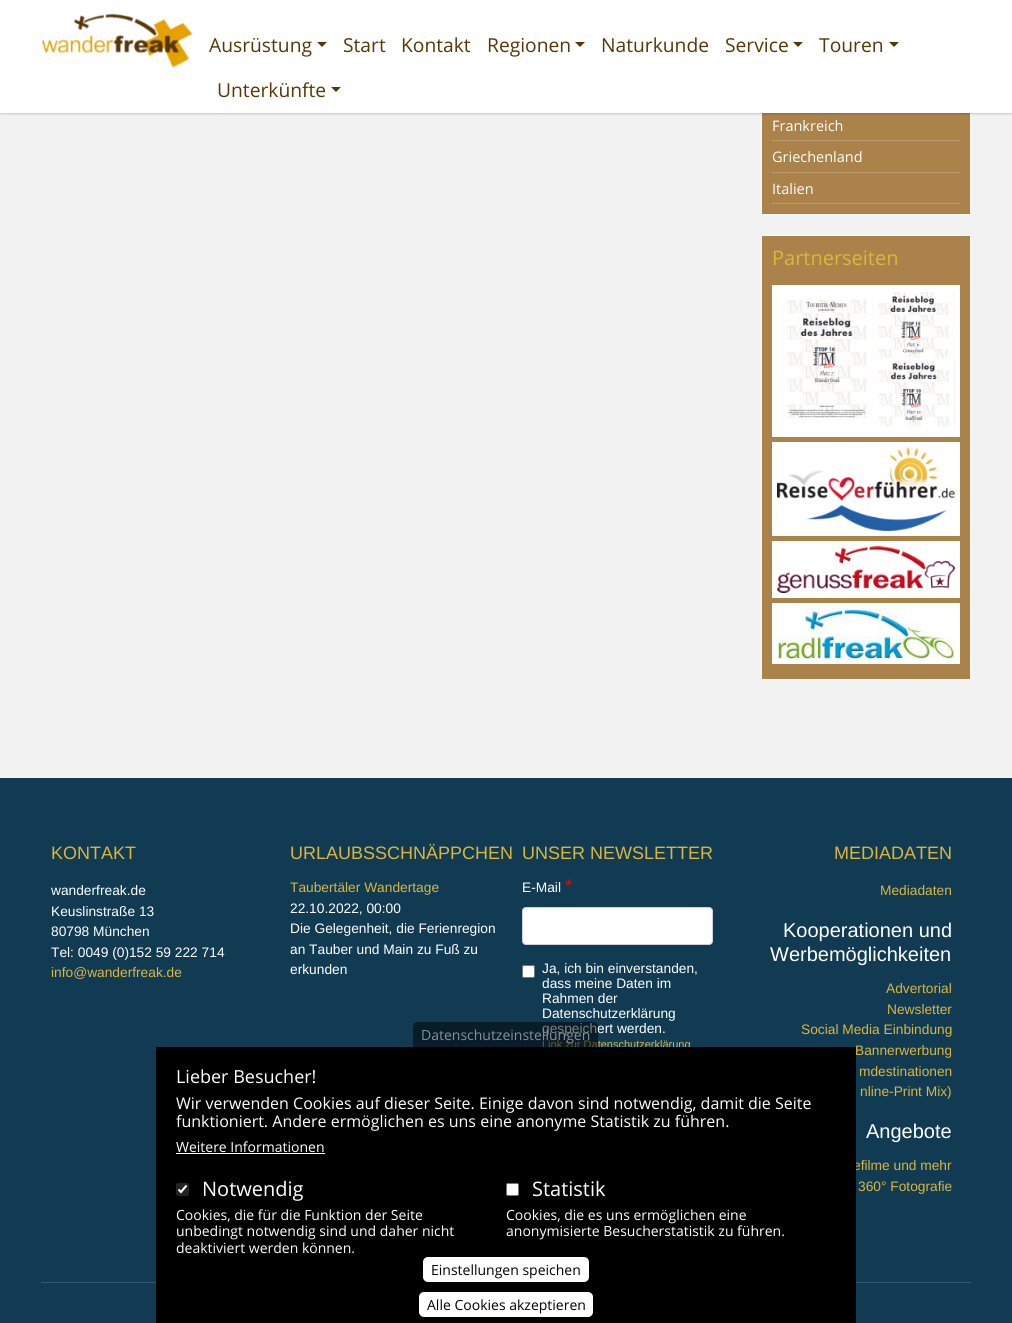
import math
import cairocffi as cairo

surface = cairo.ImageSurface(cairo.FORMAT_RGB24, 1012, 1323)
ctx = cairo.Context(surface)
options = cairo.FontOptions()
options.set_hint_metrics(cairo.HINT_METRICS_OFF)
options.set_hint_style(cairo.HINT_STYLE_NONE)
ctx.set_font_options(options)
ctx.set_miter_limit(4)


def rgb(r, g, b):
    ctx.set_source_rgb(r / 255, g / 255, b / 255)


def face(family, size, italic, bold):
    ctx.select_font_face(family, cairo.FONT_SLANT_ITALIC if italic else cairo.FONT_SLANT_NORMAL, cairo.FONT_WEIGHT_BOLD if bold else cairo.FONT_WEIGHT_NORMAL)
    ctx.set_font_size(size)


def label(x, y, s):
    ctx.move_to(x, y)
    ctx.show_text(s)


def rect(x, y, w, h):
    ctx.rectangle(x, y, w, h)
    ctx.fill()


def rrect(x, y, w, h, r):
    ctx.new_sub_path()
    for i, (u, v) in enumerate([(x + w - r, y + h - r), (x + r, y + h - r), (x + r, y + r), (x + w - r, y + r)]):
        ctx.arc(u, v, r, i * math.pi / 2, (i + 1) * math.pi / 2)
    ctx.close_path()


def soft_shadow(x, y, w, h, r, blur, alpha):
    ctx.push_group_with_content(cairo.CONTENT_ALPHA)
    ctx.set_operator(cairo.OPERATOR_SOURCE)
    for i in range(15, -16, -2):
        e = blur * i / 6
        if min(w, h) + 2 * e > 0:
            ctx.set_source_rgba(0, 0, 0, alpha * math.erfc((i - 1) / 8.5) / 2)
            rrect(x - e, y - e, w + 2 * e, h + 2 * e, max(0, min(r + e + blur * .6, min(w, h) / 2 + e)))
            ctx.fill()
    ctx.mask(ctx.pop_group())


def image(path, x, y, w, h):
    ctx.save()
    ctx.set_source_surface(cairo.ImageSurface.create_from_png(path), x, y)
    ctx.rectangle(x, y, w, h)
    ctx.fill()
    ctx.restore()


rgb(242, 242, 242)
ctx.paint()
rgb(170, 130, 74)
rect(762, 113, 208, 101)
ctx.rectangle(761.5, -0.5, 209, 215)
rgb(249, 249, 249)
ctx.set_line_width(1)
ctx.stroke()
rgb(0, 0, 0)
soft_shadow(0, 0, 1012, 113, 0, 1.5, 0.33)
rgb(255, 255, 255)
rect(0, 0, 1012, 113)
image('image0.png', 41, 13, 152, 55)
face('Open Sans', 19.25, 0, 0)
rgb(87, 55, 7)
label(209, 52, 'Ausrüstung')
ctx.new_path()
ctx.move_to(317, 42)
ctx.line_to(327, 42)
ctx.line_to(322, 47)
ctx.close_path()
ctx.fill()
label(343, 52, 'Start')
label(401, 52, 'Kontakt')
label(487, 52, 'Regionen')
ctx.new_path()
ctx.move_to(575, 42)
ctx.line_to(585, 42)
ctx.line_to(580, 47)
ctx.close_path()
ctx.fill()
label(601, 52, 'Naturkunde')
label(725, 52, 'Service')
ctx.new_path()
ctx.move_to(793, 42)
ctx.line_to(803, 42)
ctx.line_to(798, 47)
ctx.close_path()
ctx.fill()
label(819, 52, 'Touren')
ctx.new_path()
ctx.move_to(889, 42)
ctx.line_to(899, 42)
ctx.line_to(894, 47)
ctx.close_path()
ctx.fill()
label(217, 97, 'Unterkünfte')
ctx.new_path()
ctx.move_to(331, 87)
ctx.line_to(341, 87)
ctx.line_to(336, 92)
ctx.close_path()
ctx.fill()
rgb(187, 155, 110)
rect(772, 140, 188, 1)
face('Open Sans', 14.5, 0, 0)
rgb(255, 255, 255)
label(772, 131, 'Frankreich')
rgb(187, 155, 110)
rect(772, 172, 188, 1)
rgb(255, 255, 255)
label(772, 162, 'Griechenland')
rgb(187, 155, 110)
rect(772, 203, 188, 1)
rgb(255, 255, 255)
label(772, 194, 'Italien')
rgb(170, 130, 74)
ctx.rectangle(761.5, 235.5, 209, 444)
ctx.fill_preserve()
rgb(249, 249, 249)
ctx.stroke()
face('Open Sans', 20, 0, 0)
rgb(221, 181, 57)
label(772, 265, 'Partnerseiten')
rgb(255, 255, 255)
rect(772, 285, 188, 152)
image('image1.png', 787, 292, 168, 135)
rect(772, 442, 188, 94)
image('image2.png', 777, 447, 178, 84)
rect(772, 541, 188, 57)
image('image3.png', 777, 546, 178, 47)
rect(772, 603, 188, 61)
image('image4.png', 777, 608, 178, 51)
rgb(17, 59, 83)
rect(0, 778, 1012, 545)
face('Liberation Sans', 18, 0, 0)
rgb(221, 181, 57)
label(51, 859, 'KONTAKT')
face('Liberation Sans', 13.75, 0, 0)
rgb(255, 255, 255)
label(51, 895, 'wanderfreak.de')
label(51, 916, 'Keuslinstraße 13')
label(51, 936, '80798 München')
label(51, 957, 'Tel: 0049 (0)152 59 222 714')
rgb(221, 181, 57)
label(51, 977, 'info@wanderfreak.de')
face('Liberation Sans', 18, 0, 0)
label(290, 859, 'URLAUBSSCHNÄPPCHEN')
face('Liberation Sans', 13.75, 0, 0)
label(290, 892, 'Taubertäler Wandertage')
rgb(255, 255, 255)
label(290, 913, '22.10.2022, 00:00')
label(290, 933, 'Die Gelegenheit, die Ferienregion')
label(290, 954, 'an Tauber und Main zu Fuß zu')
label(290, 974, 'erkunden')
face('Liberation Sans', 18, 0, 0)
rgb(221, 181, 57)
label(522, 859, 'UNSER NEWSLETTER')
face('Liberation Sans', 13.75, 0, 0)
rgb(255, 255, 255)
label(522, 892, 'E-Mail')
image('image5.png', 565, 879, 7, 7)
rrect(522.5, 907.5, 190, 37, 3.5)
ctx.fill_preserve()
rgb(206, 212, 218)
ctx.stroke()
rgb(255, 255, 255)
rrect(522.5, 965.5, 12, 12, 1.5)
ctx.fill_preserve()
rgb(118, 118, 118)
ctx.stroke()
rgb(255, 255, 255)
label(542, 973, 'Ja, ich bin einverstanden,')
label(542, 988, 'dass meine Daten im')
label(542, 1003, 'Rahmen der')
label(542, 1018, 'Datenschutzerklärung')
label(542, 1033, 'gespeichert werden.')
face('Liberation Sans', 11, 0, 0)
rgb(221, 181, 57)
label(542, 1048, 'Link zur Datenschutzerklärung')
face('Liberation Sans', 18, 0, 0)
label(834, 859, 'MEDIADATEN')
face('Liberation Sans', 13.75, 0, 0)
label(880, 895, 'Mediadaten')
face('Liberation Sans', 20, 0, 0)
rgb(255, 255, 255)
label(783, 937, 'Kooperationen und')
label(770, 961, 'Werbemöglichkeiten')
face('Liberation Sans', 13.75, 0, 0)
rgb(221, 181, 57)
label(886, 993, 'Advertorial')
label(887, 1014, 'Newsletter')
label(801, 1034, 'Social Media Einbindung')
label(855, 1055, 'Bannerwerbung')
label(859, 1076, 'mdestinationen')
label(860, 1096, 'nline-Print Mix)')
face('Liberation Sans', 20, 0, 0)
rgb(255, 255, 255)
label(866, 1138, 'Angebote')
face('Liberation Sans', 13.75, 0, 0)
rgb(221, 181, 57)
label(853, 1170, 'efilme und mehr')
label(858, 1191, '360° Fotografie')
rgb(53, 88, 109)
rect(41, 1282, 930, 1)
rgb(0, 0, 0)
rect(156, 1047, 700, 276)
ctx.set_source_rgba(0, 0, 0, 0.5)
ctx.new_path()
ctx.move_to(418, 1022)
ctx.line_to(593, 1022)
ctx.curve_to(596, 1022, 598, 1024, 598, 1027)
ctx.line_to(598, 1047)
ctx.line_to(413, 1047)
ctx.line_to(413, 1027)
ctx.curve_to(413, 1024, 415, 1022, 418, 1022)
ctx.close_path()
ctx.fill()
face('Open Sans', 14, 0, 0)
rgb(134, 144, 150)
label(421, 1040, 'Datenschutzeinstellungen')
face('Open Sans', 18, 0, 0)
rgb(255, 255, 255)
label(176, 1083, 'Lieber Besucher!')
face('Open Sans', 16, 0, 0)
label(176, 1109, 'Wir verwenden Cookies auf dieser Seite. Einige davon sind notwendig, damit die Seite')
label(176, 1127, 'funktioniert. Andere ermöglichen es uns eine anonyme Statistik zu führen.')
face('Open Sans', 14, 0, 0)
label(176, 1152, 'Weitere Informationen')
rect(176, 1153, 149, 1)
rgb(35, 35, 35)
rrect(176, 1183, 13, 13, 2)
ctx.fill()
ctx.new_path()
ctx.move_to(178.5, 1189.5)
ctx.line_to(181, 1192)
ctx.line_to(186.5, 1185.5)
rgb(255, 255, 255)
ctx.set_line_width(2.1)
ctx.stroke()
face('Open Sans', 20, 0, 0)
label(202, 1196, 'Notwendig')
face('Open Sans', 14, 0, 0)
label(176, 1220, 'Cookies, die für die Funktion der Seite')
label(176, 1236, 'unbedingt notwendig sind und daher nicht')
label(176, 1253, 'deaktiviert werden können.')
rrect(506.5, 1183.5, 12, 12, 1.5)
ctx.fill_preserve()
rgb(118, 118, 118)
ctx.set_line_width(1)
ctx.stroke()
face('Open Sans', 20, 0, 0)
rgb(255, 255, 255)
label(532, 1196, 'Statistik')
face('Open Sans', 14, 0, 0)
label(506, 1220, 'Cookies, die es uns ermöglichen eine')
label(506, 1236, 'anonymisierte Besucherstatistik zu führen.')
rrect(423, 1257, 166, 25, 5)
ctx.fill()
rgb(0, 0, 0)
label(431, 1275, 'Einstellungen speichen')
rgb(255, 255, 255)
rrect(419, 1292, 174, 25, 5)
ctx.fill()
rgb(0, 0, 0)
label(427, 1310, 'Alle Cookies akzeptieren')
surface.write_to_png('render.png')
